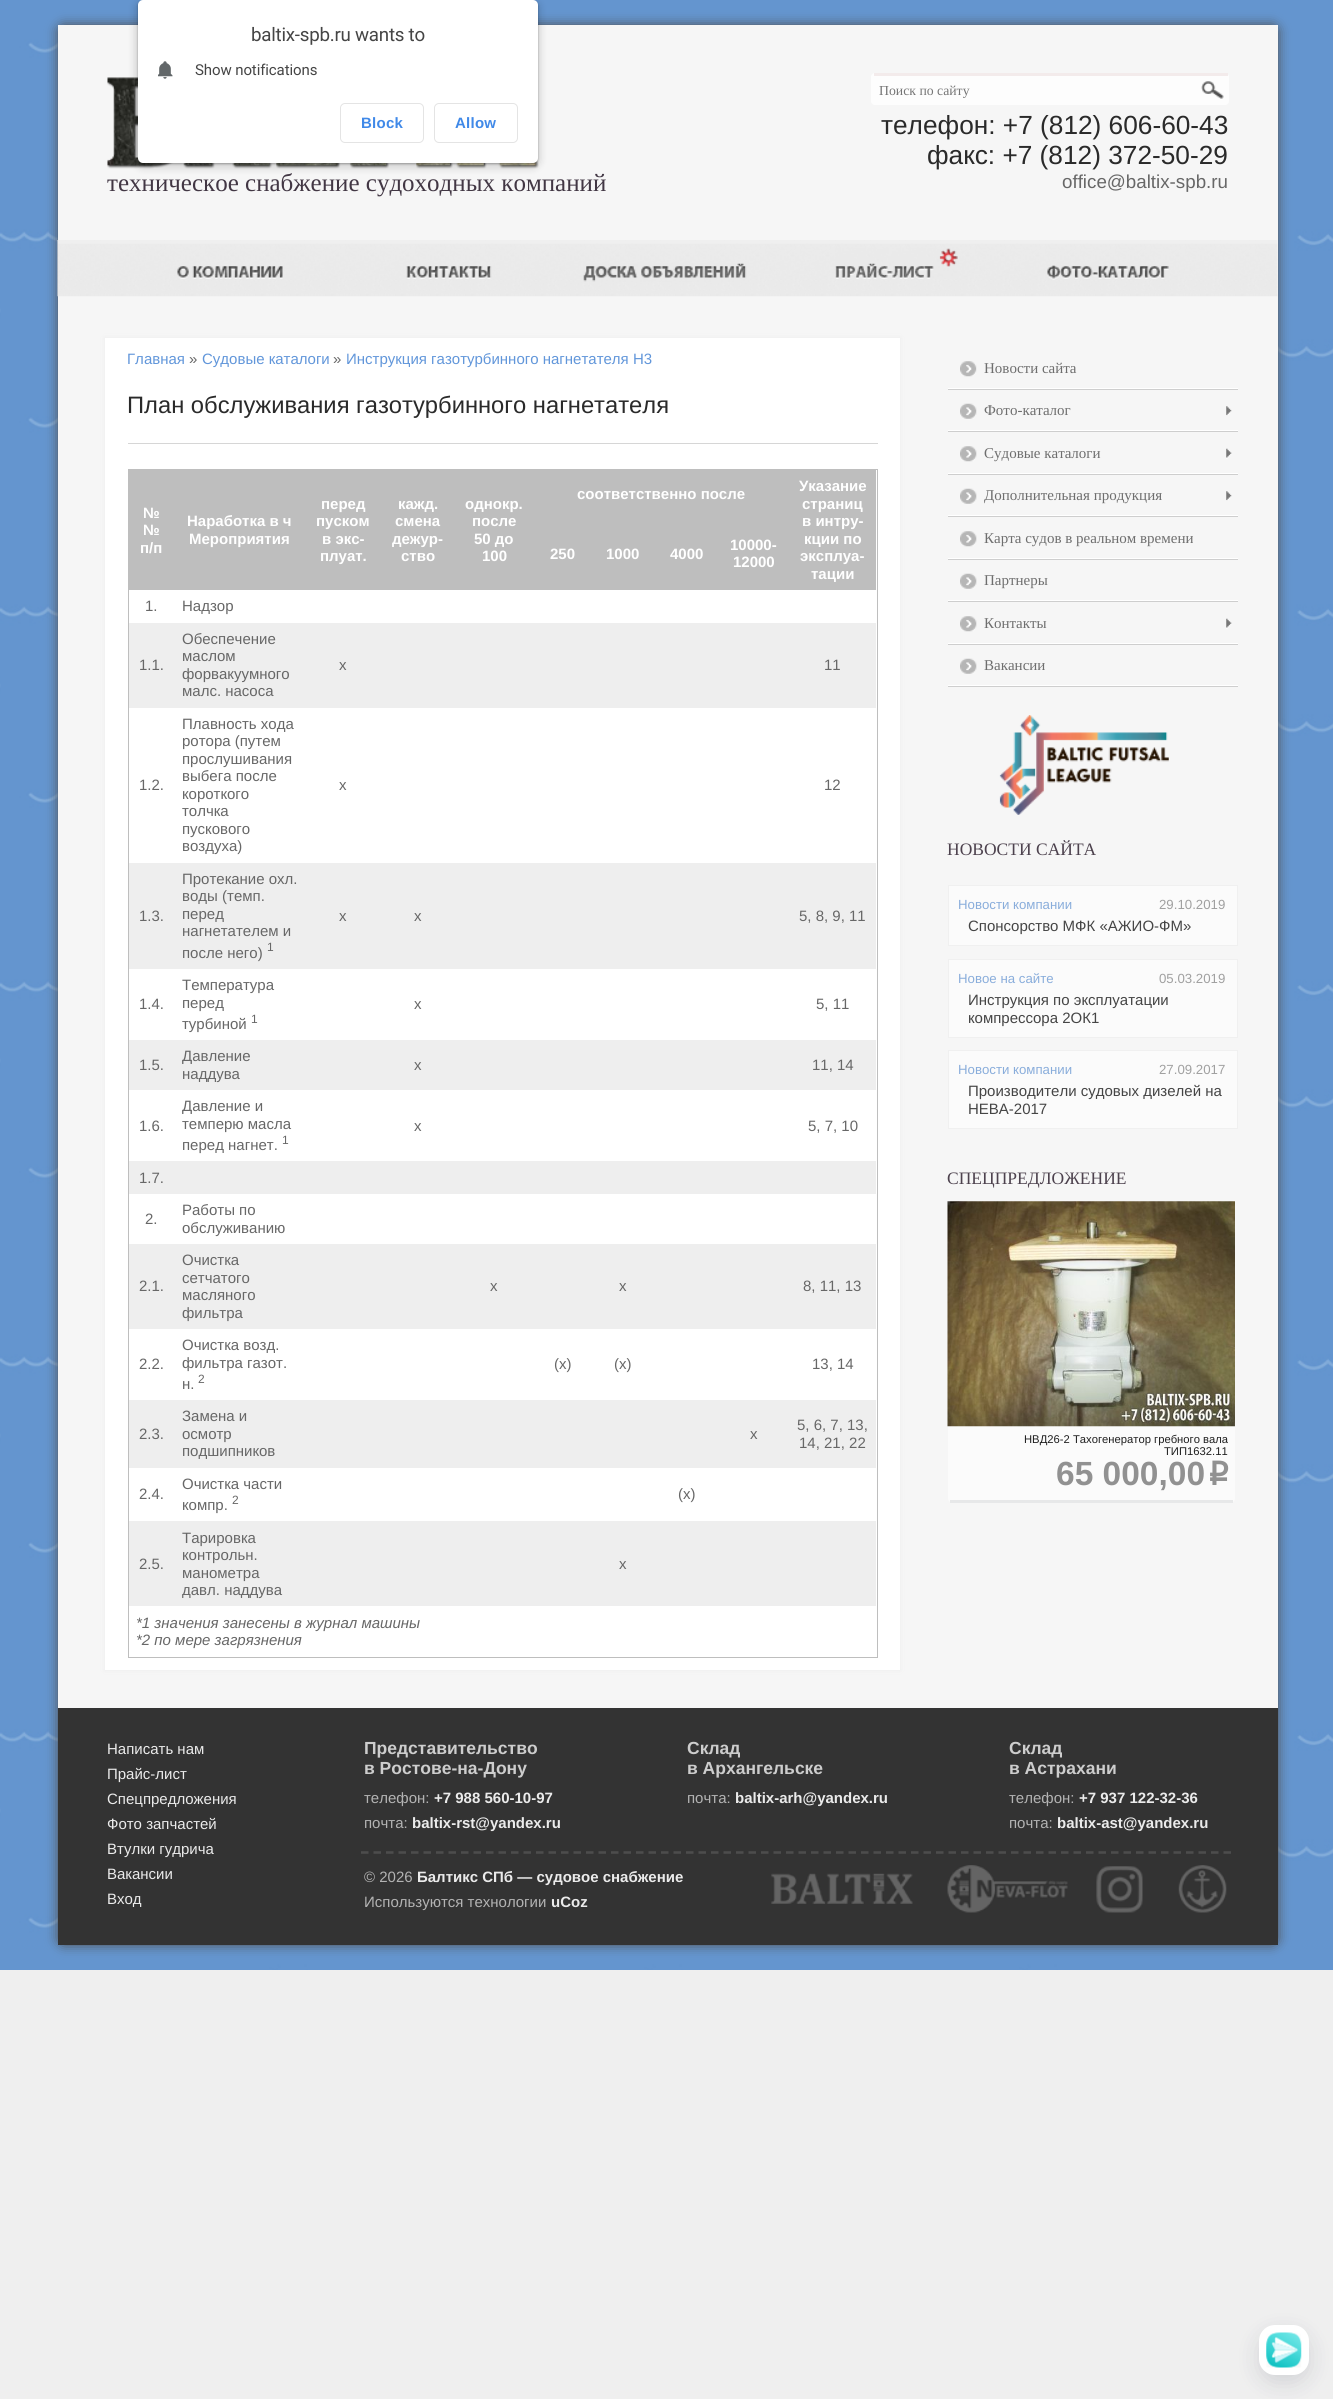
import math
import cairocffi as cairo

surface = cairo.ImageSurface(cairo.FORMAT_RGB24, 1333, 2399)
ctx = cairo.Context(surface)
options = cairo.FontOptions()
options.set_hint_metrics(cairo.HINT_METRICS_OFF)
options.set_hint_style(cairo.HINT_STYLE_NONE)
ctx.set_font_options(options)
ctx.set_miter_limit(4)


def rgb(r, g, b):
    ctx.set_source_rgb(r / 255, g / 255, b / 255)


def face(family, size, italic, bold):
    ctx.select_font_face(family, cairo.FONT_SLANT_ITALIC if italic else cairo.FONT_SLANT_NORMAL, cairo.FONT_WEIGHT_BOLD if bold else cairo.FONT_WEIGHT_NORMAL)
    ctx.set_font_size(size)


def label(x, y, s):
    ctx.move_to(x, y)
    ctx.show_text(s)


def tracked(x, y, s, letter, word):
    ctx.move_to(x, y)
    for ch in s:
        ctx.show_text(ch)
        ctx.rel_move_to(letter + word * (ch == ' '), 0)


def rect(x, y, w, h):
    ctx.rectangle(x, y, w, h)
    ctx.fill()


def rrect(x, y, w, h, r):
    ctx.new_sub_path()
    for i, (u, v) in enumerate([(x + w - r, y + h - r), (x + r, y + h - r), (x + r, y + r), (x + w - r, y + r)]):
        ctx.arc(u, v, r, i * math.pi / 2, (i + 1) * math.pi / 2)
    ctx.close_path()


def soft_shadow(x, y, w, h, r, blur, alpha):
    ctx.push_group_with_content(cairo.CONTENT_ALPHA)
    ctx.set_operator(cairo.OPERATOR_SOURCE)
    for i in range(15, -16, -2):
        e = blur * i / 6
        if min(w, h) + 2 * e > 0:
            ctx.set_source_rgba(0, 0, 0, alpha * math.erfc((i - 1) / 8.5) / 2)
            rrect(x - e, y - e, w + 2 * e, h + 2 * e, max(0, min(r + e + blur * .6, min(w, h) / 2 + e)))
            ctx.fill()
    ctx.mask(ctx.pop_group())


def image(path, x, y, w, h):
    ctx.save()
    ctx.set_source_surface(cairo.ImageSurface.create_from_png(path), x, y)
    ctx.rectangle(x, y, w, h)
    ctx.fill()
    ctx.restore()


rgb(239, 239, 239)
ctx.paint()
image('image1.png', 0, 0, 1333, 1970)
rgb(79, 79, 79)
soft_shadow(58, 25, 1220, 1920, 6, 6, 1)
rgb(246, 246, 246)
rect(58, 25, 1220, 1683)
image('image2.png', 107, 77, 432, 92)
rgb(0, 0, 0)
soft_shadow(135, 0, 405, 168, 8, 4, 0.15)
soft_shadow(138, 1, 400, 163, 5, 1, 0.3)
rgb(255, 255, 255)
rrect(138, 0, 400, 163, 5)
ctx.fill()
face('Roboto', 18.75, 0, 0)
rgb(69, 69, 69)
tracked(251, 41, 'baltix-spb.ru wants to', -0.25, 0)
image('image0.png', 158, 61, 15, 18)
face('Roboto', 15, 0, 0)
tracked(195, 75, 'Show notifications', -0.1, 0)
rrect(340.5, 103.5, 83, 39, 4.5)
rgb(228, 228, 228)
ctx.set_line_width(1)
ctx.stroke()
face('Liberation Sans', 15, 0, 1)
rgb(64, 137, 232)
tracked(361, 128, 'Block', 0.25, 0)
rrect(434.5, 103.5, 83, 39, 4.5)
rgb(228, 228, 228)
ctx.stroke()
rgb(64, 137, 232)
tracked(455, 128, 'Allow', 0.25, 0)
face('Liberation Serif', 25, 0, 0)
rgb(66, 55, 68)
label(107, 191, 'техническое снабжение судоходных компаний')
rgb(253, 253, 253)
rrect(871, 73, 358, 32, 4)
ctx.fill()
rgb(243, 235, 235)
rect(874, 73, 354, 3)
face('Liberation Serif', 13.75, 0, 0)
rgb(117, 117, 117)
label(879, 95, 'Поиск по сайту')
image('image3.png', 1201, 81, 23, 18)
face('Liberation Sans', 26.25, 0, 0)
rgb(42, 42, 42)
label(881, 134, 'телефон: +7 (812) 606-60-43')
label(927, 164, 'факс: +7 (812) 372-50-29')
face('Liberation Sans', 18.75, 0, 0)
rgb(103, 103, 103)
label(1062, 188, 'office@baltix-spb.ru')
image('image4.png', 57, 240, 1221, 57)
image('image5.png', 177, 266, 106, 13)
image('image6.png', 406, 266, 86, 13)
image('image7.png', 583, 263, 164, 19)
image('image8.png', 835, 248, 123, 31)
image('image9.png', 1047, 265, 122, 15)
rgb(236, 236, 236)
soft_shadow(105, 338, 795, 1332, 0, 2.5, 1)
rgb(255, 255, 255)
rect(105, 338, 795, 1332)
face('Liberation Sans', 15, 0, 0)
rgb(97, 150, 218)
label(127, 364, 'Главная')
rgb(103, 103, 103)
label(189, 364, '»')
rgb(97, 150, 218)
label(202, 364, 'Судовые каталоги')
rgb(103, 103, 103)
label(333, 364, '»')
rgb(97, 150, 218)
label(346, 364, 'Инструкция газотурбинного нагнетателя H3')
face('Liberation Sans', 23.75, 0, 0)
rgb(42, 42, 42)
label(127, 413, 'План обслуживания газотурбинного нагнетателя')
rgb(214, 214, 214)
rect(128, 443, 750, 1)
ctx.rectangle(128.5, 469.5, 749, 1188)
rgb(190, 190, 190)
ctx.stroke()
rect(129, 470, 747, 120)
face('Liberation Sans', 15, 0, 1)
rgb(255, 255, 255)
label(577, 499, 'соответственно после')
label(799, 491, 'Указание')
label(802, 509, 'страниц')
label(802, 526, 'в интру-')
label(804, 544, 'кции по')
label(800, 561, 'эксплуа-')
label(811, 579, 'тации')
label(143, 518, '№')
label(143, 535, '№')
label(140, 553, 'п/п')
label(187, 526, 'Наработка в ч')
label(189, 544, 'Мероприятия')
label(321, 509, 'перед')
label(316, 526, 'пуском')
label(322, 544, 'в экс-')
label(320, 561, 'плуат.')
label(398, 509, 'кажд.')
label(395, 526, 'смена')
label(392, 544, 'дежур-')
label(401, 561, 'ство')
label(465, 509, 'однокр.')
label(472, 526, 'после')
label(474, 544, '50 до')
label(482, 561, '100')
label(550, 559, '250')
label(606, 559, '1000')
label(670, 559, '4000')
label(730, 550, '10000-')
label(733, 567, '12000')
face('Liberation Sans', 15, 0, 0)
rgb(103, 103, 103)
label(145, 611, '1.')
label(182, 611, 'Надзор')
rgb(238, 238, 238)
rect(129, 623, 747, 85)
rgb(103, 103, 103)
label(139, 670, '1.1.')
label(182, 644, 'Обеспечение')
label(182, 661, 'маслом')
label(182, 679, 'форвакуумного')
label(182, 696, 'малс. насоса')
label(339, 670, 'х')
label(824, 670, '11')
label(139, 790, '1.2.')
label(182, 729, 'Плавность хода')
label(182, 746, 'ротора (путем')
label(182, 764, 'прослушивания')
label(182, 781, 'выбега после')
label(182, 799, 'короткого')
label(182, 816, 'толчка')
label(182, 834, 'пускового')
label(182, 851, 'воздуха)')
label(339, 790, 'х')
label(824, 790, '12')
rgb(238, 238, 238)
rect(129, 863, 747, 106)
rgb(103, 103, 103)
label(139, 921, '1.3.')
label(182, 884, 'Протекание охл.')
label(182, 901, 'воды (темп.')
label(182, 919, 'перед')
label(182, 936, 'нагнетателем и')
label(182, 958, 'после него)')
face('Liberation Sans', 12, 0, 0)
label(267, 951, '1')
face('Liberation Sans', 15, 0, 0)
label(339, 921, 'х')
label(414, 921, 'х')
label(799, 921, '5, 8, 9, 11')
label(139, 1009, '1.4.')
label(182, 990, 'Температура')
label(182, 1008, 'перед')
label(182, 1029, 'турбиной')
face('Liberation Sans', 12, 0, 0)
label(251, 1023, '1')
face('Liberation Sans', 15, 0, 0)
label(414, 1009, 'х')
label(816, 1009, '5, 11')
rgb(238, 238, 238)
rect(129, 1040, 747, 50)
rgb(103, 103, 103)
label(139, 1070, '1.5.')
label(182, 1061, 'Давление')
label(182, 1079, 'наддува')
label(414, 1070, 'х')
label(812, 1070, '11, 14')
label(139, 1131, '1.6.')
label(182, 1111, 'Давление и')
label(182, 1129, 'темперю масла')
face('Liberation Sans', 12, 0, 0)
label(282, 1144, '1')
face('Liberation Sans', 15, 0, 0)
label(182, 1150, 'перед нагнет.')
label(414, 1131, 'х')
label(808, 1131, '5, 7, 10')
rgb(238, 238, 238)
rect(129, 1161, 747, 33)
rgb(103, 103, 103)
label(139, 1183, '1.7.')
label(145, 1224, '2.')
label(182, 1215, 'Работы по')
label(182, 1233, 'обслуживанию')
rgb(238, 238, 238)
rect(129, 1244, 747, 85)
rgb(103, 103, 103)
label(139, 1291, '2.1.')
label(182, 1265, 'Очистка')
label(182, 1283, 'сетчатого')
label(182, 1300, 'масляного')
label(182, 1318, 'фильтра')
label(490, 1291, 'х')
label(619, 1291, 'х')
label(803, 1291, '8, 11, 13')
label(139, 1369, '2.2.')
label(182, 1350, 'Очистка возд.')
label(182, 1368, 'фильтра газот.')
face('Liberation Sans', 12, 0, 0)
label(198, 1383, '2')
face('Liberation Sans', 15, 0, 0)
label(182, 1389, 'н.')
label(554, 1369, '(х)')
label(614, 1369, '(х)')
label(812, 1369, '13, 14')
rgb(238, 238, 238)
rect(129, 1400, 747, 68)
rgb(103, 103, 103)
label(139, 1439, '2.3.')
label(182, 1421, 'Замена и')
label(182, 1439, 'осмотр')
label(182, 1456, 'подшипников')
label(750, 1439, 'х')
label(797, 1430, '5, 6, 7, 13,')
label(799, 1448, '14, 21, 22')
label(139, 1499, '2.4.')
label(182, 1489, 'Очистка части')
face('Liberation Sans', 12, 0, 0)
label(232, 1504, '2')
face('Liberation Sans', 15, 0, 0)
label(182, 1510, 'компр.')
label(678, 1499, '(х)')
rgb(238, 238, 238)
rect(129, 1521, 747, 85)
rgb(103, 103, 103)
label(139, 1569, '2.5.')
label(182, 1543, 'Тарировка')
label(182, 1560, 'контрольн.')
label(182, 1578, 'манометра')
label(182, 1595, 'давл. наддува')
label(619, 1569, 'х')
face('Liberation Sans', 15, 1, 0)
label(136, 1628, '*1 значения занесены в журнал машины')
label(136, 1645, '*2 по мере загрязнения')
rgb(206, 206, 206)
rect(948, 389, 290, 1)
rgb(255, 255, 255)
rect(948, 388, 290, 1)
image('image10.png', 960, 361, 17, 16)
face('Liberation Serif', 15, 0, 0)
rgb(110, 110, 110)
label(984, 373, 'Новости сайта')
rgb(206, 206, 206)
rect(948, 431, 290, 1)
rgb(255, 255, 255)
rect(948, 430, 290, 1)
image('image11.png', 960, 403, 17, 16)
rgb(110, 110, 110)
label(984, 415, 'Фото-каталог')
image('image12.png', 1226, 406, 6, 10)
rgb(206, 206, 206)
rect(948, 474, 290, 1)
rgb(255, 255, 255)
rect(948, 473, 290, 1)
image('image13.png', 960, 446, 17, 16)
rgb(110, 110, 110)
label(984, 458, 'Судовые каталоги')
image('image14.png', 1226, 448, 6, 11)
rgb(206, 206, 206)
rect(948, 516, 290, 1)
rgb(255, 255, 255)
rect(948, 515, 290, 1)
image('image15.png', 960, 488, 17, 16)
rgb(110, 110, 110)
label(984, 500, 'Дополнительная продукция')
image('image12.png', 1226, 491, 6, 10)
rgb(206, 206, 206)
rect(948, 559, 290, 1)
rgb(255, 255, 255)
rect(948, 558, 290, 1)
image('image16.png', 960, 531, 17, 16)
rgb(110, 110, 110)
label(984, 543, 'Карта судов в реальном времени')
rgb(206, 206, 206)
rect(948, 601, 290, 1)
rgb(255, 255, 255)
rect(948, 600, 290, 1)
image('image17.png', 960, 573, 17, 16)
rgb(110, 110, 110)
label(984, 585, 'Партнеры')
rgb(206, 206, 206)
rect(948, 644, 290, 1)
rgb(255, 255, 255)
rect(948, 643, 290, 1)
image('image13.png', 960, 616, 17, 16)
rgb(110, 110, 110)
label(984, 628, 'Контакты')
image('image14.png', 1226, 618, 6, 11)
rgb(206, 206, 206)
rect(948, 686, 290, 1)
rgb(255, 255, 255)
rect(948, 685, 290, 1)
image('image17.png', 960, 658, 17, 16)
rgb(110, 110, 110)
label(984, 670, 'Вакансии')
image('image18.png', 999, 715, 170, 100)
face('Liberation Serif', 17.5, 0, 0)
rgb(77, 66, 78)
label(947, 855, 'НОВОСТИ САЙТА')
rgb(251, 251, 251)
ctx.rectangle(948.5, 885.5, 289, 60)
ctx.fill_preserve()
rgb(240, 240, 240)
ctx.stroke()
face('Liberation Sans', 13.25, 0, 0)
rgb(137, 173, 219)
label(958, 909, 'Новости компании')
rgb(160, 160, 160)
label(1159, 909, '29.10.2019')
face('Liberation Sans', 15, 0, 0)
rgb(69, 69, 69)
label(968, 931, 'Спонсорство МФК «АЖИО-ФМ»')
rgb(251, 251, 251)
ctx.rectangle(948.5, 959.5, 289, 78)
ctx.fill_preserve()
rgb(240, 240, 240)
ctx.stroke()
face('Liberation Sans', 13.25, 0, 0)
rgb(137, 173, 219)
label(958, 983, 'Новое на сайте')
rgb(160, 160, 160)
label(1159, 983, '05.03.2019')
face('Liberation Sans', 15, 0, 0)
rgb(69, 69, 69)
label(968, 1005, 'Инструкция по эксплуатации')
label(968, 1023, 'компрессора 2ОК1')
rgb(251, 251, 251)
ctx.rectangle(948.5, 1050.5, 289, 78)
ctx.fill_preserve()
rgb(240, 240, 240)
ctx.stroke()
face('Liberation Sans', 13.25, 0, 0)
rgb(137, 173, 219)
label(958, 1074, 'Новости компании')
rgb(160, 160, 160)
label(1159, 1074, '27.09.2017')
face('Liberation Sans', 15, 0, 0)
rgb(69, 69, 69)
label(968, 1096, 'Производители судовых дизелей на')
label(968, 1114, 'НЕВА-2017')
face('Liberation Serif', 17.5, 0, 0)
rgb(77, 66, 78)
label(947, 1184, 'СПЕЦПРЕДЛОЖЕНИЕ')
rgb(251, 251, 251)
rrect(948, 1201, 287, 302, 5)
ctx.fill()
rgb(231, 232, 233)
rect(950, 1500, 283, 3)
image('image19.png', 947, 1201, 288, 226)
face('Liberation Sans', 11.25, 0, 0)
rgb(31, 31, 31)
label(1024, 1443, 'НВД26-2 Тахогенератор гребного вала')
label(1164, 1455, 'ТИП1632.11')
face('Liberation Sans', 33.5, 0, 1)
rgb(145, 145, 145)
label(1056, 1485, '65 000,00')
face('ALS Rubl', 33.5, 0, 1)
label(1205, 1485, 'i')
rgb(51, 51, 51)
rect(58, 1708, 1220, 237)
face('Liberation Sans', 15, 0, 0)
rgb(235, 235, 235)
label(107, 1754, 'Написать нам')
label(107, 1779, 'Прайс-лист')
label(107, 1804, 'Спецпредложения')
label(107, 1829, 'Фото запчастей')
label(107, 1854, 'Втулки гудрича')
label(107, 1879, 'Вакансии')
label(107, 1904, 'Вход')
face('Liberation Sans', 17.5, 0, 1)
rgb(205, 205, 205)
label(364, 1754, 'Представительство')
label(364, 1774, 'в Ростове-на-Дону')
face('Liberation Sans', 15, 0, 0)
rgb(179, 179, 179)
label(364, 1803, 'телефон:')
face('Liberation Sans', 15, 0, 1)
rgb(235, 235, 235)
label(434, 1803, '+7 988 560-10-97')
face('Liberation Sans', 15, 0, 0)
rgb(179, 179, 179)
label(364, 1828, 'почта:')
face('Liberation Sans', 15, 0, 1)
rgb(235, 235, 235)
label(412, 1828, 'baltix-rst@yandex.ru')
face('Liberation Sans', 17.5, 0, 1)
rgb(205, 205, 205)
label(687, 1754, 'Склад')
label(687, 1774, 'в Архангельске')
face('Liberation Sans', 15, 0, 0)
rgb(179, 179, 179)
label(687, 1803, 'почта:')
face('Liberation Sans', 15, 0, 1)
rgb(235, 235, 235)
label(735, 1803, 'baltix-arh@yandex.ru')
face('Liberation Sans', 17.5, 0, 1)
rgb(205, 205, 205)
label(1009, 1754, 'Склад')
label(1009, 1774, 'в Астрахани')
face('Liberation Sans', 15, 0, 0)
rgb(179, 179, 179)
label(1009, 1803, 'телефон:')
face('Liberation Sans', 15, 0, 1)
rgb(235, 235, 235)
label(1079, 1803, '+7 937 122-32-36')
face('Liberation Sans', 15, 0, 0)
rgb(179, 179, 179)
label(1009, 1828, 'почта:')
face('Liberation Sans', 15, 0, 1)
rgb(235, 235, 235)
label(1057, 1828, 'baltix-ast@yandex.ru')
ctx.new_path()
ctx.move_to(361, 1852.5)
ctx.line_to(1231, 1852.5)
rgb(77, 77, 77)
ctx.set_line_width(2.5)
ctx.set_dash([7.5, 5])
ctx.stroke()
face('Liberation Sans', 15, 0, 0)
rgb(179, 179, 179)
label(364, 1882, '© 2026')
face('Liberation Sans', 15, 0, 1)
rgb(235, 235, 235)
label(417, 1882, 'Балтикс СПб — судовое снабжение')
face('Liberation Sans', 15, 0, 0)
rgb(179, 179, 179)
label(364, 1907, 'Используются технологии')
face('Liberation Sans', 15, 0, 1)
rgb(235, 235, 235)
label(551, 1907, 'uCoz')
image('image20.png', 771, 1873, 142, 31)
image('image21.png', 947, 1865, 121, 48)
image('image22.png', 1096, 1866, 47, 47)
image('image23.png', 1178, 1865, 49, 48)
rgb(14, 21, 47)
soft_shadow(1259, 2333, 50, 50, 16, 11, 0.13)
rgb(255, 255, 255)
rrect(1259, 2325, 50, 50, 16)
ctx.fill()
image('image24.png', 1266, 2332, 36, 36)
surface.write_to_png('render.png')
